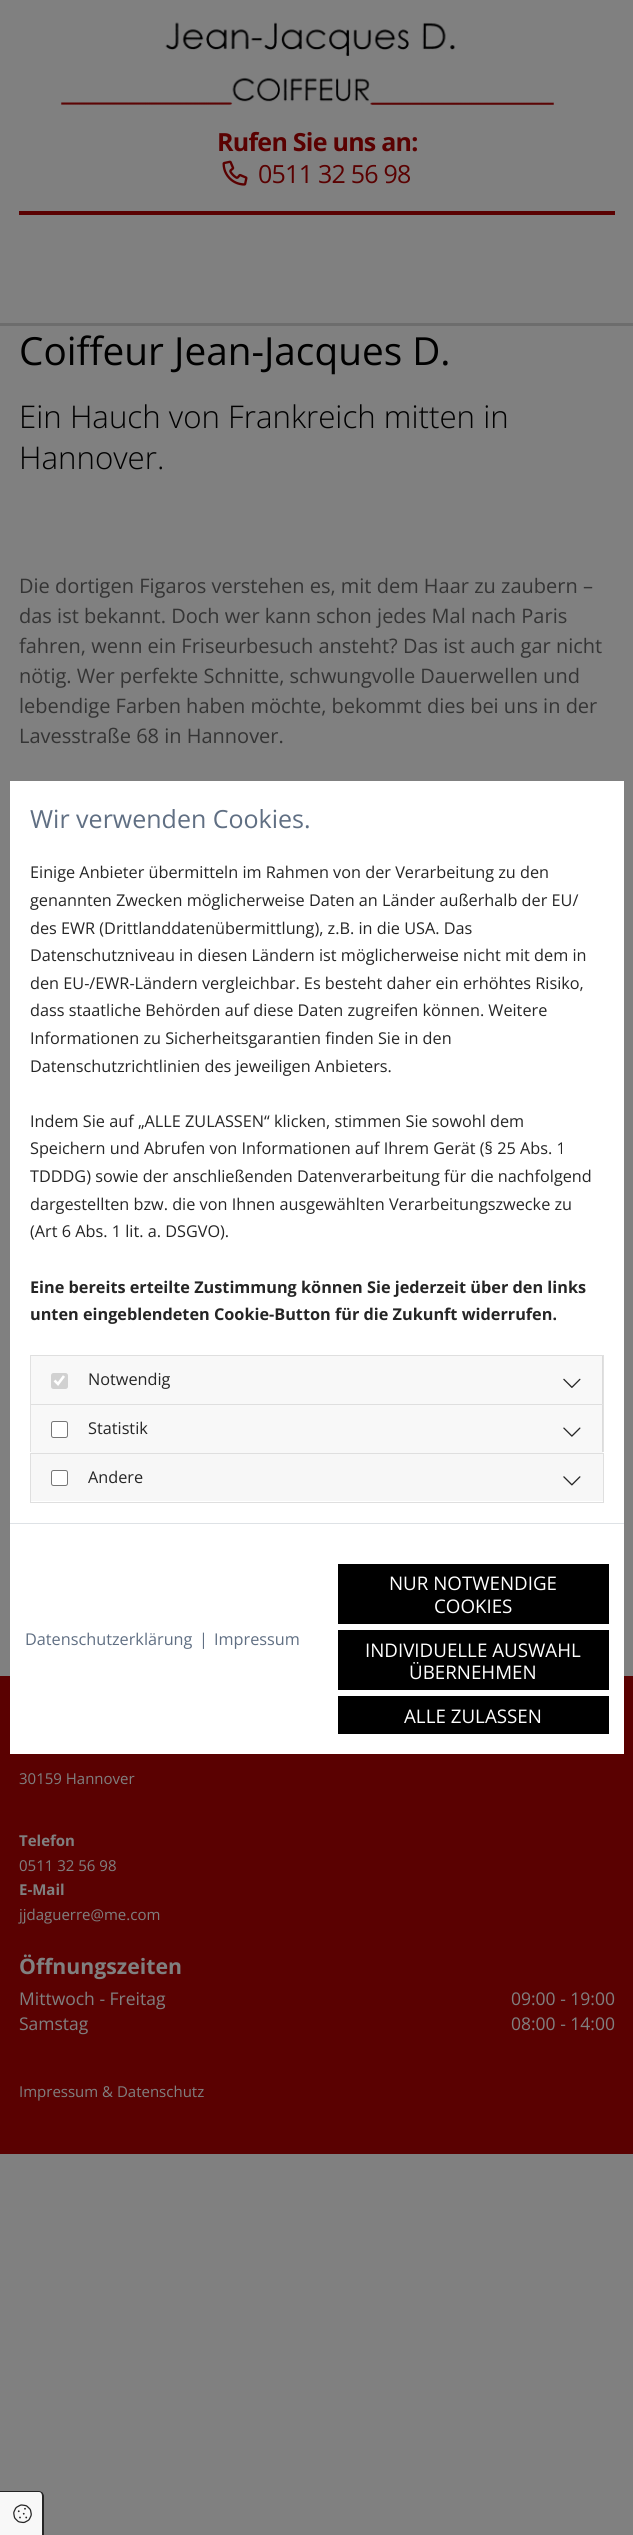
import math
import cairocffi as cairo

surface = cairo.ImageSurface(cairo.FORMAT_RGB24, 633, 2535)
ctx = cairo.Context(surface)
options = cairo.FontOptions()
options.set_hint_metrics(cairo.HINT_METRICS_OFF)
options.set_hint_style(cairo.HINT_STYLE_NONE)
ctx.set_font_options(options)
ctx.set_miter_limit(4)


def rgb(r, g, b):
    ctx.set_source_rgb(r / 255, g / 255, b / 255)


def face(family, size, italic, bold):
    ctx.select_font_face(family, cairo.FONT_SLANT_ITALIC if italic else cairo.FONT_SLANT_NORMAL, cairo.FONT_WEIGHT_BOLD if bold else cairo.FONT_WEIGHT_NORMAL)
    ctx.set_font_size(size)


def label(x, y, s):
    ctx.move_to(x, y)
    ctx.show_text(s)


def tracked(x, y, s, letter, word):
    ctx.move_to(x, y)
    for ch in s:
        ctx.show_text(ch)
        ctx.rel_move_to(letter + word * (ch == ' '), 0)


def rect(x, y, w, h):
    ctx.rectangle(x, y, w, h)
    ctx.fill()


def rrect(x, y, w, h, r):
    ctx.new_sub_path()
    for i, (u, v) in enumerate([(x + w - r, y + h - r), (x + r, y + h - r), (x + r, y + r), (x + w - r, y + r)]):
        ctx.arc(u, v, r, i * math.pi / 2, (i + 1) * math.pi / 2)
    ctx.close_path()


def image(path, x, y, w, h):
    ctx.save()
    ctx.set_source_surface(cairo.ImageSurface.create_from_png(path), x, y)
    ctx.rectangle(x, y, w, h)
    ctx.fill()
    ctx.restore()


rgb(128, 128, 128)
ctx.paint()
image('image0.png', 61, 22, 493, 83)
face('Open Sans', 25, 0, 1)
rgb(90, 1, 1)
tracked(217, 151, 'Rufen Sie uns an:', -0.75, 0)
image('image1.png', 222, 160, 26, 26)
face('Open Sans', 25, 0, 0)
tracked(258, 183, '0511 32 56 98', -0.75, 0)
rect(19, 211, 596, 4)
rgb(109, 109, 109)
rect(0, 323, 633, 3)
face('Open Sans', 38.75, 0, 0)
rgb(0, 0, 0)
label(19, 365, 'Coiffeur Jean-Jacques D.')
face('Open Sans Light', 31.25, 0, 0)
label(19, 428, 'Ein Hauch von Frankreich mitten in')
label(19, 469, 'Hannover.')
face('Open Sans', 20, 0, 0)
rgb(52, 52, 52)
label(19, 593, 'Die dortigen Figaros verstehen es, mit dem Haar zu zaubern –')
label(19, 623, 'das ist bekannt. Doch wer kann schon jedes Mal nach Paris')
label(19, 653, 'fahren, wenn ein Friseurbesuch ansteht? Das ist auch gar nicht')
label(19, 683, 'nötig. Wer perfekte Schnitte, schwungvolle Dauerwellen und')
label(19, 713, 'lebendige Farben haben möchte, bekommt dies bei uns in der')
label(19, 743, 'Lavesstraße 68 in Hannover.')
rgb(90, 1, 1)
rect(0, 1676, 633, 478)
face('Open Sans', 15, 0, 0)
rgb(128, 128, 128)
label(19, 1784, '30159 Hannover')
face('Open Sans', 15, 0, 1)
label(19, 1846, 'Telefon')
face('Open Sans', 15, 0, 0)
label(19, 1871, '0511 32 56 98')
face('Open Sans', 15, 0, 1)
label(19, 1895, 'E-Mail')
face('Open Sans', 15, 0, 0)
label(19, 1920, 'jjdaguerre@me.com')
face('Open Sans', 21.25, 0, 1)
label(19, 1974, 'Öffnungszeiten')
face('Open Sans', 17.5, 0, 0)
label(19, 2005, 'Mittwoch - Freitag')
label(511, 2005, '09:00 - 19:00')
label(19, 2030, 'Samstag')
label(511, 2030, '08:00 - 14:00')
face('Open Sans', 15, 0, 0)
label(19, 2097, 'Impressum & Datenschutz')
rgb(255, 255, 255)
rect(10, 781, 614, 973)
face('Open Sans', 25, 0, 0)
rgb(96, 111, 131)
label(30, 828, 'Wir verwenden Cookies.')
face('Open Sans', 16.25, 0, 0)
rgb(37, 37, 37)
label(30, 878, 'Einige Anbieter übermitteln im Rahmen von der Verarbeitung zu den')
label(30, 906, 'genannten Zwecken möglicherweise Daten an Länder außerhalb der EU/')
label(30, 934, 'des EWR (Drittlanddatenübermittlung), z.B. in die USA. Das')
label(30, 961, 'Datenschutzniveau in diesen Ländern ist möglicherweise nicht mit dem in')
label(30, 989, 'den EU-/EWR-Ländern vergleichbar. Es besteht daher ein erhöhtes Risiko,')
label(30, 1016, 'dass staatliche Behörden auf diese Daten zugreifen können. Weitere')
label(30, 1044, 'Informationen zu Sicherheitsgarantien finden Sie in den')
label(30, 1072, 'Datenschutzrichtlinien des jeweiligen Anbieters.')
label(30, 1127, 'Indem Sie auf „ALLE ZULASSEN“ klicken, stimmen Sie sowohl dem')
label(30, 1154, 'Speichern und Abrufen von Informationen auf Ihrem Gerät (§ 25 Abs. 1')
label(30, 1182, 'TDDDG) sowie der anschließenden Datenverarbeitung für die nachfolgend')
label(30, 1210, 'dargestellten bzw. die von Ihnen ausgewählten Verarbeitungszwecke zu')
label(30, 1237, '(Art 6 Abs. 1 lit. a. DSGVO).')
face('Open Sans', 16.25, 0, 1)
label(30, 1293, 'Eine bereits erteilte Zustimmung können Sie jederzeit über den links')
label(30, 1320, 'unten eingeblendeten Cookie-Button für die Zukunft widerrufen.')
rgb(223, 223, 223)
ctx.new_path()
ctx.move_to(30, 1355)
ctx.line_to(604, 1355)
ctx.line_to(602, 1356)
ctx.line_to(31, 1356)
ctx.close_path()
ctx.fill()
ctx.set_source_rgba(0, 0, 0, 0.12)
ctx.new_path()
ctx.move_to(604, 1355)
ctx.line_to(604, 1404)
ctx.line_to(602, 1404)
ctx.line_to(602, 1356)
ctx.close_path()
ctx.fill()
ctx.new_path()
ctx.move_to(30, 1404)
ctx.line_to(30, 1355)
ctx.line_to(31, 1356)
ctx.line_to(31, 1404)
ctx.close_path()
ctx.fill()
ctx.set_source_rgba(0, 0, 0, 0.03)
rect(31, 1356, 572, 48)
rgb(209, 209, 209)
rrect(51, 1373, 17, 16, 2.5)
ctx.fill()
ctx.new_path()
ctx.move_to(54.5, 1380.5)
ctx.line_to(58, 1384)
ctx.line_to(64, 1376)
rgb(255, 255, 255)
ctx.set_line_width(2.6)
ctx.stroke()
face('Open Sans', 16.25, 0, 0)
rgb(37, 37, 37)
label(88, 1385, 'Notwendig')
image('image2.png', 563, 1378, 18, 10)
rgb(223, 223, 223)
ctx.new_path()
ctx.move_to(30, 1404)
ctx.line_to(604, 1404)
ctx.line_to(602, 1405)
ctx.line_to(31, 1405)
ctx.close_path()
ctx.fill()
ctx.set_source_rgba(0, 0, 0, 0.12)
ctx.new_path()
ctx.move_to(604, 1404)
ctx.line_to(604, 1452)
ctx.line_to(602, 1452)
ctx.line_to(602, 1405)
ctx.close_path()
ctx.fill()
ctx.new_path()
ctx.move_to(30, 1452)
ctx.line_to(30, 1404)
ctx.line_to(31, 1405)
ctx.line_to(31, 1452)
ctx.close_path()
ctx.fill()
ctx.set_source_rgba(0, 0, 0, 0.03)
rect(31, 1405, 572, 48)
rgb(255, 255, 255)
rrect(51.5, 1421.5, 16, 16, 2)
ctx.fill_preserve()
rgb(118, 118, 118)
ctx.set_line_width(1)
ctx.stroke()
rgb(37, 37, 37)
label(88, 1434, 'Statistik')
image('image3.png', 563, 1427, 18, 10)
ctx.rectangle(30.5, 1453.5, 573, 49)
rgb(223, 223, 223)
ctx.stroke()
rgb(247, 247, 247)
rect(31, 1454, 572, 47)
rgb(255, 255, 255)
rrect(51.5, 1470.5, 16, 15, 2)
ctx.fill_preserve()
rgb(118, 118, 118)
ctx.stroke()
rgb(37, 37, 37)
label(88, 1483, 'Andere')
image('image4.png', 563, 1476, 18, 10)
rgb(222, 226, 230)
rect(10, 1523, 614, 1)
rgb(96, 111, 131)
label(25, 1645, 'Datenschutzerklärung')
label(199, 1645, '|')
label(214, 1645, 'Impressum')
rgb(0, 0, 0)
rect(338, 1564, 271, 60)
face('Open Sans', 18.75, 0, 0)
rgb(255, 255, 255)
label(389, 1590, 'NUR NOTWENDIGE')
label(434, 1613, 'COOKIES')
rgb(0, 0, 0)
rect(338, 1630, 271, 60)
rgb(255, 255, 255)
label(365, 1657, 'INDIVIDUELLE AUSWAHL')
label(409, 1679, 'ÜBERNEHMEN')
rgb(0, 0, 0)
rect(338, 1696, 271, 38)
rgb(255, 255, 255)
label(404, 1723, 'ALLE ZULASSEN')
rgb(248, 248, 248)
ctx.new_path()
ctx.move_to(0, 2491)
ctx.line_to(39, 2491)
ctx.curve_to(42, 2491, 44, 2493, 44, 2496)
ctx.line_to(44, 2535)
ctx.line_to(0, 2535)
ctx.close_path()
ctx.fill()
rgb(37, 37, 37)
ctx.set_fill_rule(cairo.FILL_RULE_EVEN_ODD)
ctx.new_path()
ctx.move_to(0, 2491)
ctx.line_to(39, 2491)
ctx.curve_to(42, 2491, 44, 2493, 44, 2496)
ctx.line_to(44, 2535)
ctx.line_to(0, 2535)
ctx.close_path()
ctx.move_to(0, 2492)
ctx.line_to(39, 2492)
ctx.curve_to(41, 2492, 42, 2494, 42, 2496)
ctx.line_to(42, 2535)
ctx.line_to(0, 2535)
ctx.close_path()
ctx.fill()
image('image5.png', 13, 2504, 19, 20)
surface.write_to_png('render.png')
